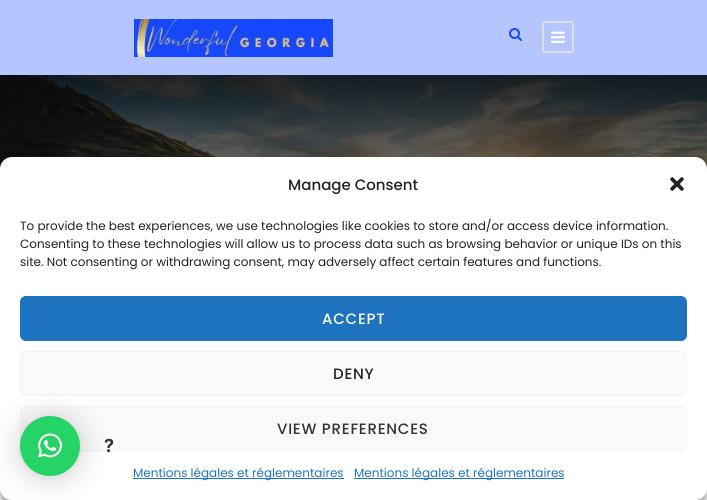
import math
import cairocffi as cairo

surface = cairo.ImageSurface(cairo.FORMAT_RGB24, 707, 500)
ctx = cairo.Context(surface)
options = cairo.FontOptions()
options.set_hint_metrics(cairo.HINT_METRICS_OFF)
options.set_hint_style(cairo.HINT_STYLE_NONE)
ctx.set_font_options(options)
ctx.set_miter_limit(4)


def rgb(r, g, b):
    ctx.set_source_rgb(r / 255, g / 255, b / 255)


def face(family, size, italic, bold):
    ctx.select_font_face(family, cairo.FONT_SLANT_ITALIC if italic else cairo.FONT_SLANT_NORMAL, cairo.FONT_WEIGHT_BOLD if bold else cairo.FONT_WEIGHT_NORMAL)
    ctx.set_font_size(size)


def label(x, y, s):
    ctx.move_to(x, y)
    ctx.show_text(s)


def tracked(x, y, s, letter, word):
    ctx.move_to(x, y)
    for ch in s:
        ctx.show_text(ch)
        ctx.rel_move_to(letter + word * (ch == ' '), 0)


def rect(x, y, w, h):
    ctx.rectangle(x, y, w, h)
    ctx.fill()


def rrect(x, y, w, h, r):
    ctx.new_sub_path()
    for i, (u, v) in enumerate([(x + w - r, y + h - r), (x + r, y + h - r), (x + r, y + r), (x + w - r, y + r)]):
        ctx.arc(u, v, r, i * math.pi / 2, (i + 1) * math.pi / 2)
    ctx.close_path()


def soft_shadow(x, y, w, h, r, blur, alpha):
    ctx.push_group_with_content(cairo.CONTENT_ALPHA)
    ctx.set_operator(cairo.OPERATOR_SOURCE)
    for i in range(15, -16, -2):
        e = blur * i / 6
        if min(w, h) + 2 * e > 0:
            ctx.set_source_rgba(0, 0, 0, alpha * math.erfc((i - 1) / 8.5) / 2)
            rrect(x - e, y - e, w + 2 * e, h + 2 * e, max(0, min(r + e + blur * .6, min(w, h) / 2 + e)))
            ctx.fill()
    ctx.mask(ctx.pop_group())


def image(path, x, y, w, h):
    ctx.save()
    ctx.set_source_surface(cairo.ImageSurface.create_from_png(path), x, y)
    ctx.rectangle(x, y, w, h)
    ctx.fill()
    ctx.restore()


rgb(181, 197, 255)
ctx.paint()
image('image0.png', 134, 19, 199, 38)
image('image1.png', 509, 28, 13, 13)
rrect(543, 22, 30, 30, 2)
rgb(221, 221, 221)
ctx.stroke()
image('image2.png', 551, 31, 14, 12)
rgb(255, 255, 255)
rect(0, 488, 707, 12)
image('image3.png', 0, 75, 707, 94)
rgb(0, 0, 0)
soft_shadow(0, 163, 707, 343, 12, 3, 0.23)
soft_shadow(0, 167, 707, 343, 12, 10, 0.19)
rgb(255, 255, 255)
rrect(0, 157, 707, 343, 12)
ctx.fill()
face('Poppins Medium', 15, 0, 0)
rgb(34, 34, 34)
label(288, 190, 'Manage Consent')
image('image4.png', 670, 177, 14, 14)
face('Poppins', 12, 0, 0)
label(20, 230, 'To provide the best experiences, we use technologies like cookies to store and/or access device information.')
label(20, 248, 'Consenting to these technologies will allow us to process data such as browsing behavior or unique IDs on this')
label(20, 266, 'site. Not consenting or withdrawing consent, may adversely affect certain features and functions.')
rgb(30, 115, 190)
rrect(20.5, 296.5, 666, 44, 5.5)
ctx.fill_preserve()
ctx.set_line_width(1)
ctx.stroke()
face('Poppins Medium', 15, 0, 0)
rgb(255, 255, 255)
tracked(322, 324, 'ACCEPT', 0.75, 0)
rgb(249, 249, 249)
rrect(20.5, 351.5, 666, 44, 5.5)
ctx.fill_preserve()
rgb(242, 242, 242)
ctx.stroke()
rgb(34, 34, 34)
tracked(333, 379, 'DENY', 0.75, 0)
rgb(249, 249, 249)
rrect(20.5, 406.5, 666, 44, 5.5)
ctx.fill_preserve()
rgb(242, 242, 242)
ctx.stroke()
rgb(51, 51, 51)
tracked(277, 434, 'VIEW PREFERENCES', 0.75, 0)
rgb(30, 115, 190)
rect(133, 478, 211, 1)
face('Poppins', 12, 0, 0)
label(133, 477, 'Mentions légales et réglementaires')
rect(354, 478, 210, 1)
label(354, 477, 'Mentions légales et réglementaires')
rgb(0, 0, 0)
soft_shadow(20, 418, 60, 60, 30, 16, 0.16)
soft_shadow(20, 417, 60, 60, 30, 3, 0.06)
rgb(37, 211, 102)
ctx.arc(50, 446, 30, 0, 2 * math.pi)
ctx.fill()
image('image5.png', 38, 433, 24, 25)
face('Inter', 18, 0, 1)
rgb(51, 51, 51)
label(104, 452, '?')
surface.write_to_png('render.png')
